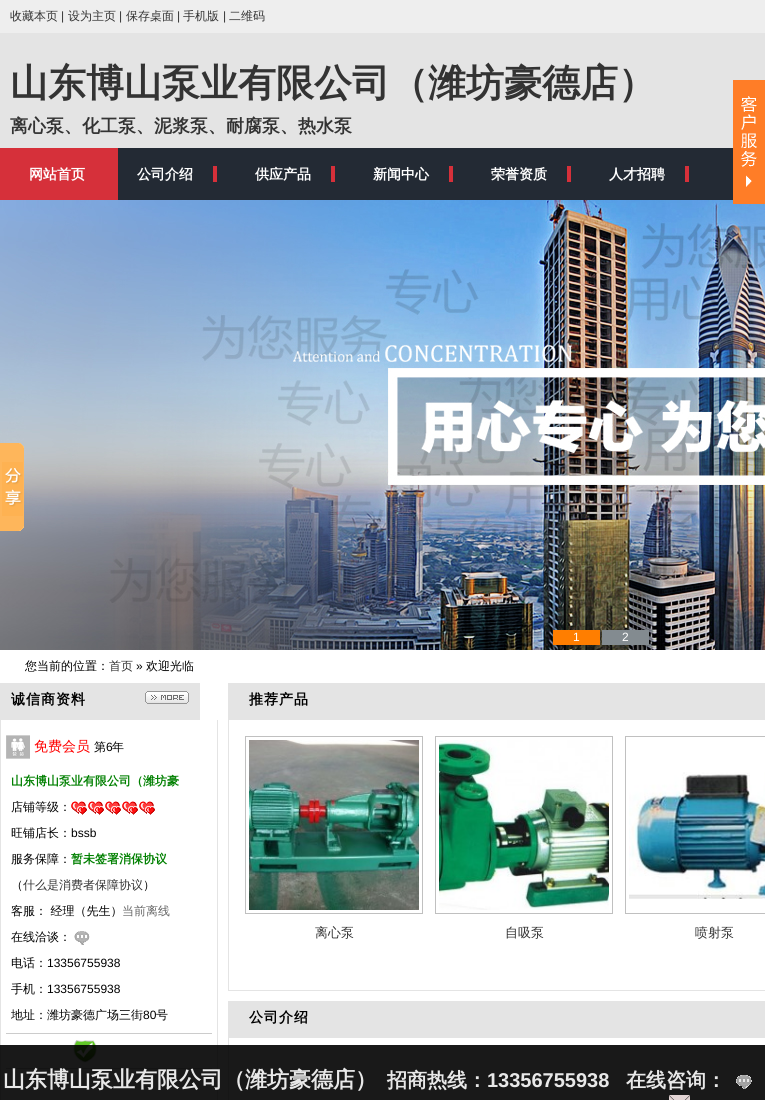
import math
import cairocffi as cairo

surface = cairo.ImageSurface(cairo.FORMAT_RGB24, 765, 1100)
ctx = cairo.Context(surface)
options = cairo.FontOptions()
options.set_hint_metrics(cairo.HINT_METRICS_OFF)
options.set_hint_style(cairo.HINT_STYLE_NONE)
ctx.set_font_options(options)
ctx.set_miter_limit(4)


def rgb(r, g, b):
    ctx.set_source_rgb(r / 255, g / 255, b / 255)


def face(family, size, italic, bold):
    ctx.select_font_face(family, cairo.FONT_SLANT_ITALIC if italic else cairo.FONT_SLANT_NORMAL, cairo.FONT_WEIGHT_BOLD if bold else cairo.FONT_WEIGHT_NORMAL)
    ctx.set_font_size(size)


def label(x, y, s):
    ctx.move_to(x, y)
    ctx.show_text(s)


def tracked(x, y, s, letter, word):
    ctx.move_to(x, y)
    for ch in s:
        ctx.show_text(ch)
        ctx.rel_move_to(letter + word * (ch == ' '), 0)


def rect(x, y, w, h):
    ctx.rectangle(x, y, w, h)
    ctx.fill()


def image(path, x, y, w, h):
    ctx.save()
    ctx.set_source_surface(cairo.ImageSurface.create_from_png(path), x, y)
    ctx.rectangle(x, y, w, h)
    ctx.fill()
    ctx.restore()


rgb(255, 255, 255)
ctx.paint()
rgb(238, 238, 238)
rect(0, 0, 765, 33)
face('WenQuanYi Zen Hei Medium', 12, 0, 0)
rgb(51, 51, 51)
label(10, 20, '收藏本页')
face('Liberation Sans', 12, 0, 0)
label(61, 20, '|')
face('WenQuanYi Zen Hei Medium', 12, 0, 0)
label(68, 20, '设为主页')
face('Liberation Sans', 12, 0, 0)
label(119, 20, '|')
face('WenQuanYi Zen Hei Medium', 12, 0, 0)
label(126, 20, '保存桌面')
face('Liberation Sans', 12, 0, 0)
label(177, 20, '|')
face('WenQuanYi Zen Hei Medium', 12, 0, 0)
label(183, 20, '手机版')
face('Liberation Sans', 12, 0, 0)
label(223, 20, '|')
face('WenQuanYi Zen Hei Medium', 12, 0, 0)
label(229, 20, '二维码')
rgb(228, 228, 228)
rect(0, 33, 765, 115)
face('WenQuanYi Zen Hei', 38, 0, 1)
rgb(51, 51, 51)
label(10, 96, '山东博山泵业有限公司（潍坊豪德店）')
face('WenQuanYi Zen Hei', 18, 0, 1)
label(10, 132, '离心泵、化工泵、泥浆泵、耐腐泵、热水泵')
image('image2.png', 0, 200, 765, 450)
image('image0.png', 733, 80, 32, 124)
rgb(35, 42, 52)
rect(118, 148, 615, 52)
rgb(214, 48, 58)
rect(0, 148, 118, 52)
face('WenQuanYi Zen Hei', 14, 0, 1)
rgb(255, 255, 255)
label(29, 179, '网站首页')
label(137, 179, '公司介绍')
rgb(214, 48, 58)
rect(213, 166, 4, 16)
rgb(255, 255, 255)
label(255, 179, '供应产品')
rgb(214, 48, 58)
rect(331, 166, 4, 16)
rgb(255, 255, 255)
label(373, 179, '新闻中心')
rgb(214, 48, 58)
rect(449, 166, 4, 16)
rgb(255, 255, 255)
label(491, 179, '荣誉资质')
rgb(214, 48, 58)
rect(567, 166, 4, 16)
rgb(255, 255, 255)
label(609, 179, '人才招聘')
rgb(214, 48, 58)
rect(685, 166, 4, 16)
image('image1.png', 0, 443, 24, 88)
rgb(255, 126, 0)
rect(553, 630, 47, 15)
face('Liberation Sans', 12, 0, 0)
rgb(255, 255, 255)
label(573, 641, '1')
rgb(131, 139, 144)
rect(602, 630, 47, 15)
rgb(255, 255, 255)
label(622, 641, '2')
face('WenQuanYi Zen Hei Medium', 12, 0, 0)
rgb(0, 0, 0)
label(25, 670, '您当前的位置：')
rgb(51, 51, 51)
label(109, 670, '首页')
face('Liberation Sans', 12, 0, 0)
rgb(0, 0, 0)
label(136, 670, '»')
face('WenQuanYi Zen Hei Medium', 12, 0, 0)
label(146, 670, '欢迎光临')
rgb(228, 228, 228)
rect(0, 683, 200, 37)
face('WenQuanYi Zen Hei', 14, 0, 1)
rgb(0, 0, 0)
tracked(11, 704, '诚信商资料', 1, 0)
image('image3.png', 145, 691, 44, 13)
rgb(228, 228, 228)
rect(217, 720, 1, 380)
rect(0, 720, 1, 380)
image('image4.png', 6, 735, 24, 24)
face('WenQuanYi Zen Hei Medium', 14, 0, 0)
rgb(255, 0, 0)
label(34, 751, '免费会员')
face('WenQuanYi Zen Hei Medium', 12, 0, 0)
rgb(0, 0, 0)
label(94, 751, '第')
face('Liberation Sans', 12, 0, 0)
label(106, 751, '6')
face('WenQuanYi Zen Hei Medium', 12, 0, 0)
label(112, 751, '年')
face('WenQuanYi Zen Hei', 12, 0, 1)
rgb(0, 128, 0)
label(11, 785, '山东博山泵业有限公司（潍坊豪')
face('WenQuanYi Zen Hei Medium', 12, 0, 0)
rgb(0, 0, 0)
label(11, 811, '店铺等级：')
image('image5.png', 71, 801, 84, 14)
label(11, 837, '旺铺店长：')
face('Liberation Sans', 12, 0, 0)
label(71, 837, 'bssb')
face('WenQuanYi Zen Hei Medium', 12, 0, 0)
label(11, 863, '服务保障：')
face('WenQuanYi Zen Hei', 12, 0, 1)
rgb(0, 128, 0)
label(71, 863, '暂未签署消保协议')
face('WenQuanYi Zen Hei Medium', 12, 0, 0)
rgb(0, 0, 0)
label(11, 889, '（')
rgb(51, 51, 51)
label(23, 889, '什么是消费者保障协议')
rgb(0, 0, 0)
label(143, 889, '）')
label(11, 915, '客服： 经理（先生）')
rgb(102, 102, 102)
label(122, 915, '当前离线')
rgb(0, 0, 0)
label(11, 941, '在线洽谈：')
image('image6.png', 74, 931, 16, 14)
label(11, 967, '电话：')
face('Liberation Sans', 12, 0, 0)
label(47, 967, '13356755938')
face('WenQuanYi Zen Hei Medium', 12, 0, 0)
label(11, 993, '手机：')
face('Liberation Sans', 12, 0, 0)
label(47, 993, '13356755938')
face('WenQuanYi Zen Hei Medium', 12, 0, 0)
label(11, 1019, '地址：潍坊豪德广场三街')
face('Liberation Sans', 12, 0, 0)
label(143, 1019, '80')
face('WenQuanYi Zen Hei Medium', 12, 0, 0)
label(156, 1019, '号')
rgb(204, 204, 204)
rect(6, 1033, 206, 1)
rect(6, 1068, 206, 1)
image('image7.png', 73, 1040, 24, 23)
rgb(228, 228, 228)
rect(228, 683, 537, 37)
face('WenQuanYi Zen Hei', 14, 0, 1)
rgb(0, 0, 0)
tracked(249, 704, '推荐产品', 1, 0)
rgb(228, 228, 228)
rect(228, 990, 537, 1)
rect(228, 720, 1, 271)
ctx.rectangle(245.5, 736.5, 177, 177)
rgb(192, 192, 192)
ctx.set_line_width(1)
ctx.stroke()
image('image8.png', 249, 740, 170, 170)
face('WenQuanYi Zen Hei Medium', 13, 0, 0)
rgb(51, 51, 51)
label(315, 937, '离心泵')
ctx.rectangle(435.5, 736.5, 177, 177)
rgb(192, 192, 192)
ctx.stroke()
image('image9.png', 439, 740, 170, 170)
rgb(51, 51, 51)
label(505, 937, '自吸泵')
ctx.rectangle(625.5, 736.5, 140, 177)
rgb(192, 192, 192)
ctx.stroke()
image('image10.png', 629, 772, 136, 127)
rgb(51, 51, 51)
label(695, 937, '喷射泵')
rgb(228, 228, 228)
rect(228, 1001, 537, 37)
face('WenQuanYi Zen Hei', 14, 0, 1)
rgb(0, 0, 0)
tracked(249, 1022, '公司介绍', 1, 0)
rgb(228, 228, 228)
rect(228, 1038, 1, 62)
ctx.set_source_rgba(0, 0, 0, 0.9)
rect(0, 1045, 765, 55)
face('WenQuanYi Zen Hei', 22, 0, 1)
rgb(232, 232, 232)
label(3, 1087, '山东博山泵业有限公司（潍坊豪德店）')
face('WenQuanYi Zen Hei', 20, 0, 1)
label(387, 1087, '招商热线：')
face('Liberation Sans', 20, 0, 1)
label(487, 1087, '13356755938')
face('WenQuanYi Zen Hei', 20, 0, 1)
label(626, 1087, '在线咨询：')
image('image11.png', 736, 1075, 16, 14)
image('image12.png', 669, 1095, 21, 5)
surface.write_to_png('render.png')
